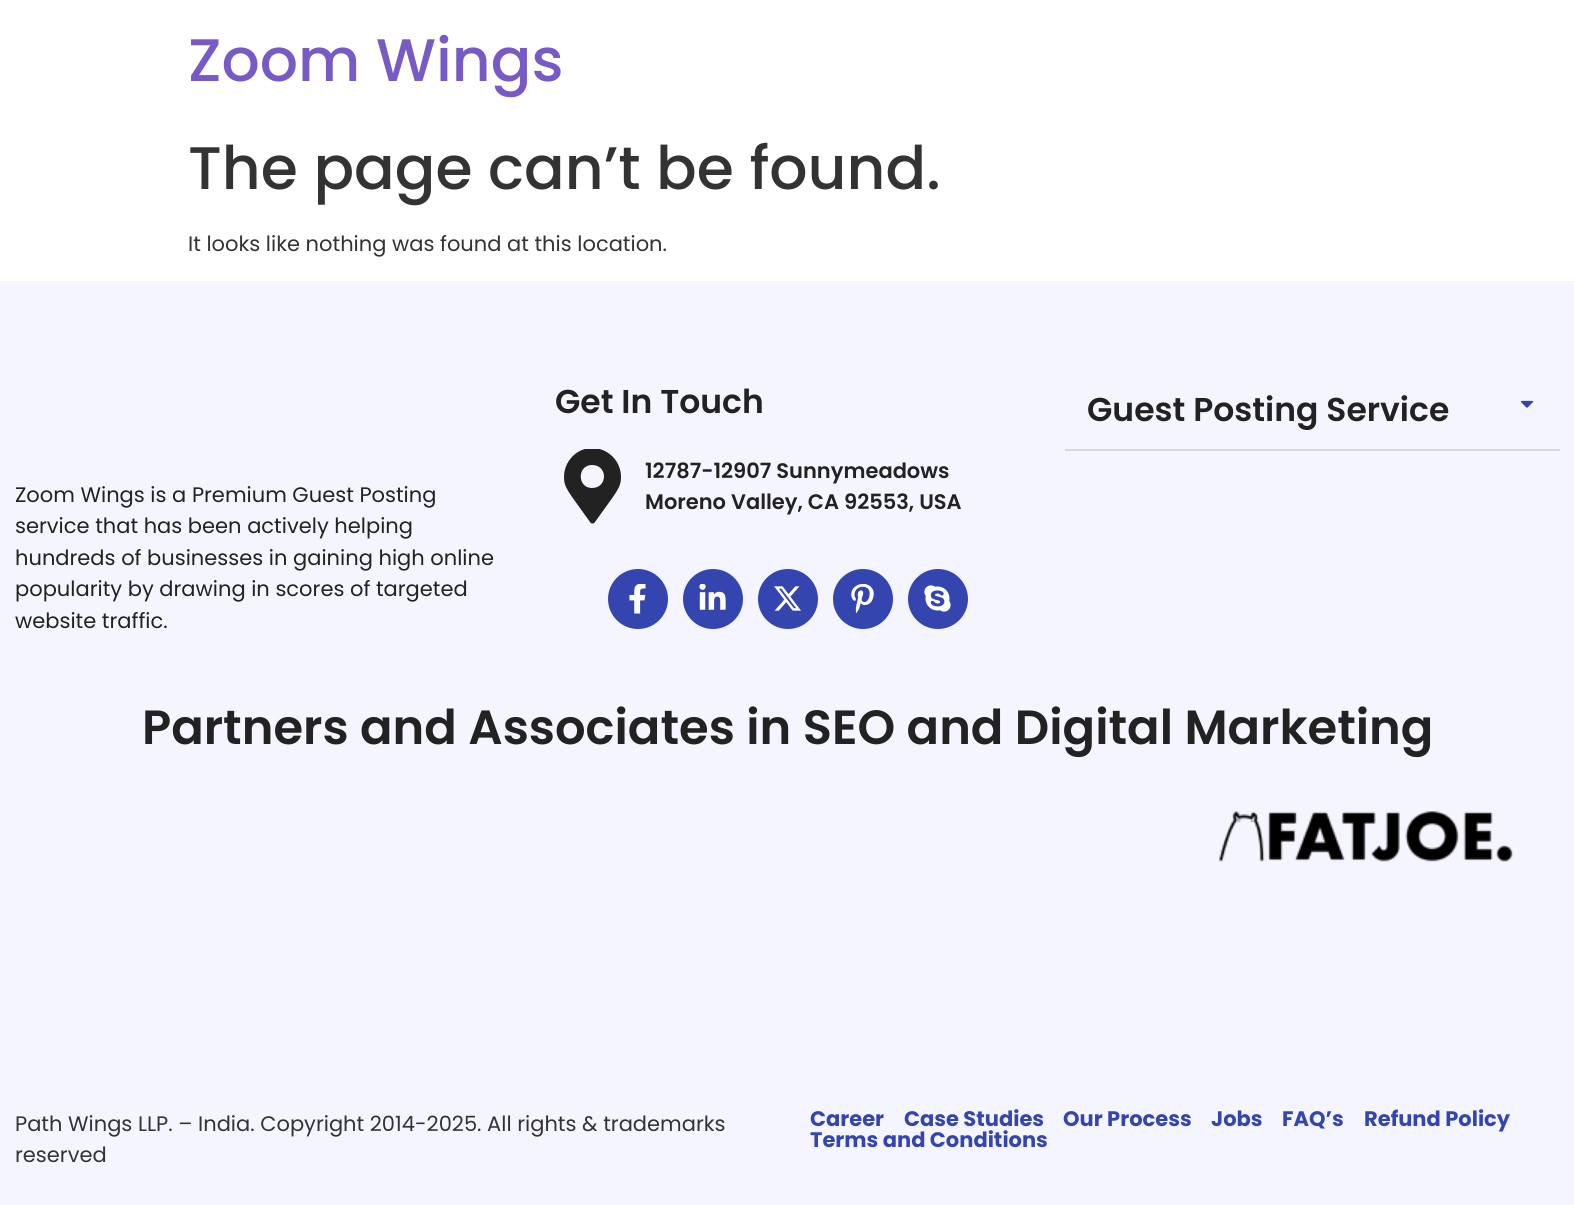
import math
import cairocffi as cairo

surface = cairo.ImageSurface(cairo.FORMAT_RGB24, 1574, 1205)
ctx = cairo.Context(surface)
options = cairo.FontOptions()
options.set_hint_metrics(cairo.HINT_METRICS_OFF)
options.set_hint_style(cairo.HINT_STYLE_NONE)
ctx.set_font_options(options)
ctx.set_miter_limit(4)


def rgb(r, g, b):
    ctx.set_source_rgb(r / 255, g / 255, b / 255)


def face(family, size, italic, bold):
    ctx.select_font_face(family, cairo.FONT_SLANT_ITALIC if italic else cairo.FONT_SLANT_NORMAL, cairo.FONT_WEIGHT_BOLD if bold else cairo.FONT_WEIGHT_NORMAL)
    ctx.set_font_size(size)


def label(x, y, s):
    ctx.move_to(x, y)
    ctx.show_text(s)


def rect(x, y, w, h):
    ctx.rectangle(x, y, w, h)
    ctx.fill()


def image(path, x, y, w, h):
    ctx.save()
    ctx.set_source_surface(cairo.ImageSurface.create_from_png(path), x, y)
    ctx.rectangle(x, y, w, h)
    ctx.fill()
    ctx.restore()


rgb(255, 255, 255)
ctx.paint()
face('Poppins Medium', 60, 0, 0)
rgb(119, 90, 197)
label(188, 81, 'Zoom Wings')
rgb(51, 51, 51)
label(188, 189, 'The page can’t be found.')
face('Poppins', 21, 0, 0)
label(188, 251, 'It looks like nothing was found at this location.')
rgb(244, 245, 255)
rect(0, 281, 1574, 924)
face('Poppins SemiBold', 33, 0, 0)
rgb(34, 34, 34)
label(555, 413, 'Get In Touch')
ctx.save()
ctx.rectangle(555, 449, 75, 75)
ctx.clip()
ctx.new_path()
ctx.move_to(590, 522)
ctx.curve_to(568, 491, 564, 488, 564, 477)
ctx.curve_to(564, 461, 577, 448, 592, 448)
ctx.curve_to(608, 448, 621, 461, 621, 477)
ctx.curve_to(621, 488, 617, 491, 595, 522)
ctx.curve_to(594, 524, 591, 524, 590, 522)
ctx.close_path()
ctx.move_to(592, 488)
ctx.curve_to(608, 488, 608, 465, 592, 465)
ctx.curve_to(577, 465, 577, 488, 592, 488)
ctx.close_path()
ctx.fill()
ctx.restore()
face('Poppins SemiBold', 21, 0, 0)
label(645, 478, '12787-12907 Sunnymeadows')
label(645, 509, 'Moreno Valley, CA 92553, USA')
rgb(52, 69, 175)
ctx.new_path()
ctx.arc(638, 599, 30, 0, 2 * math.pi)
ctx.fill()
image('image0.png', 629, 584, 17, 30)
ctx.arc(713, 599, 30, 0, 2 * math.pi)
ctx.fill()
image('image1.png', 699, 584, 27, 26)
ctx.arc(788, 599, 30, 0, 2 * math.pi)
ctx.fill()
image('image2.png', 774, 586, 27, 25)
ctx.arc(863, 599, 30, 0, 2 * math.pi)
ctx.fill()
image('image3.png', 851, 584, 23, 30)
ctx.arc(938, 599, 30, 0, 2 * math.pi)
ctx.fill()
image('image4.png', 924, 585, 27, 27)
rgb(213, 216, 220)
rect(1065, 449, 495, 2)
face('Poppins SemiBold', 33, 0, 0)
rgb(34, 34, 34)
label(1087, 421, 'Guest Posting Service')
image('image5.png', 1520, 400, 14, 8)
face('Poppins', 21, 0, 0)
label(15, 502, 'Zoom Wings is a Premium Guest Posting')
label(15, 533, 'service that has been actively helping')
label(15, 565, 'hundreds of businesses in gaining high online')
label(15, 596, 'popularity by drawing in scores of targeted')
label(15, 628, 'website traffic.')
face('Poppins SemiBold', 48, 0, 0)
label(142, 744, 'Partners and Associates in SEO and Digital Marketing')
image('image6.png', 1219, 811, 294, 51)
face('Poppins', 21, 0, 0)
rgb(51, 51, 51)
label(15, 1131, 'Path Wings LLP. – India. Copyright 2014-2025. All rights & trademarks')
label(15, 1162, 'reserved')
face('Poppins', 21, 0, 1)
rgb(52, 69, 175)
label(810, 1126, 'Career')
label(904, 1126, 'Case Studies')
label(1063, 1126, 'Our Process')
label(1211, 1126, 'Jobs')
label(1282, 1126, 'FAQ’s')
label(1364, 1126, 'Refund Policy')
label(810, 1147, 'Terms and Conditions')
surface.write_to_png('render.png')
